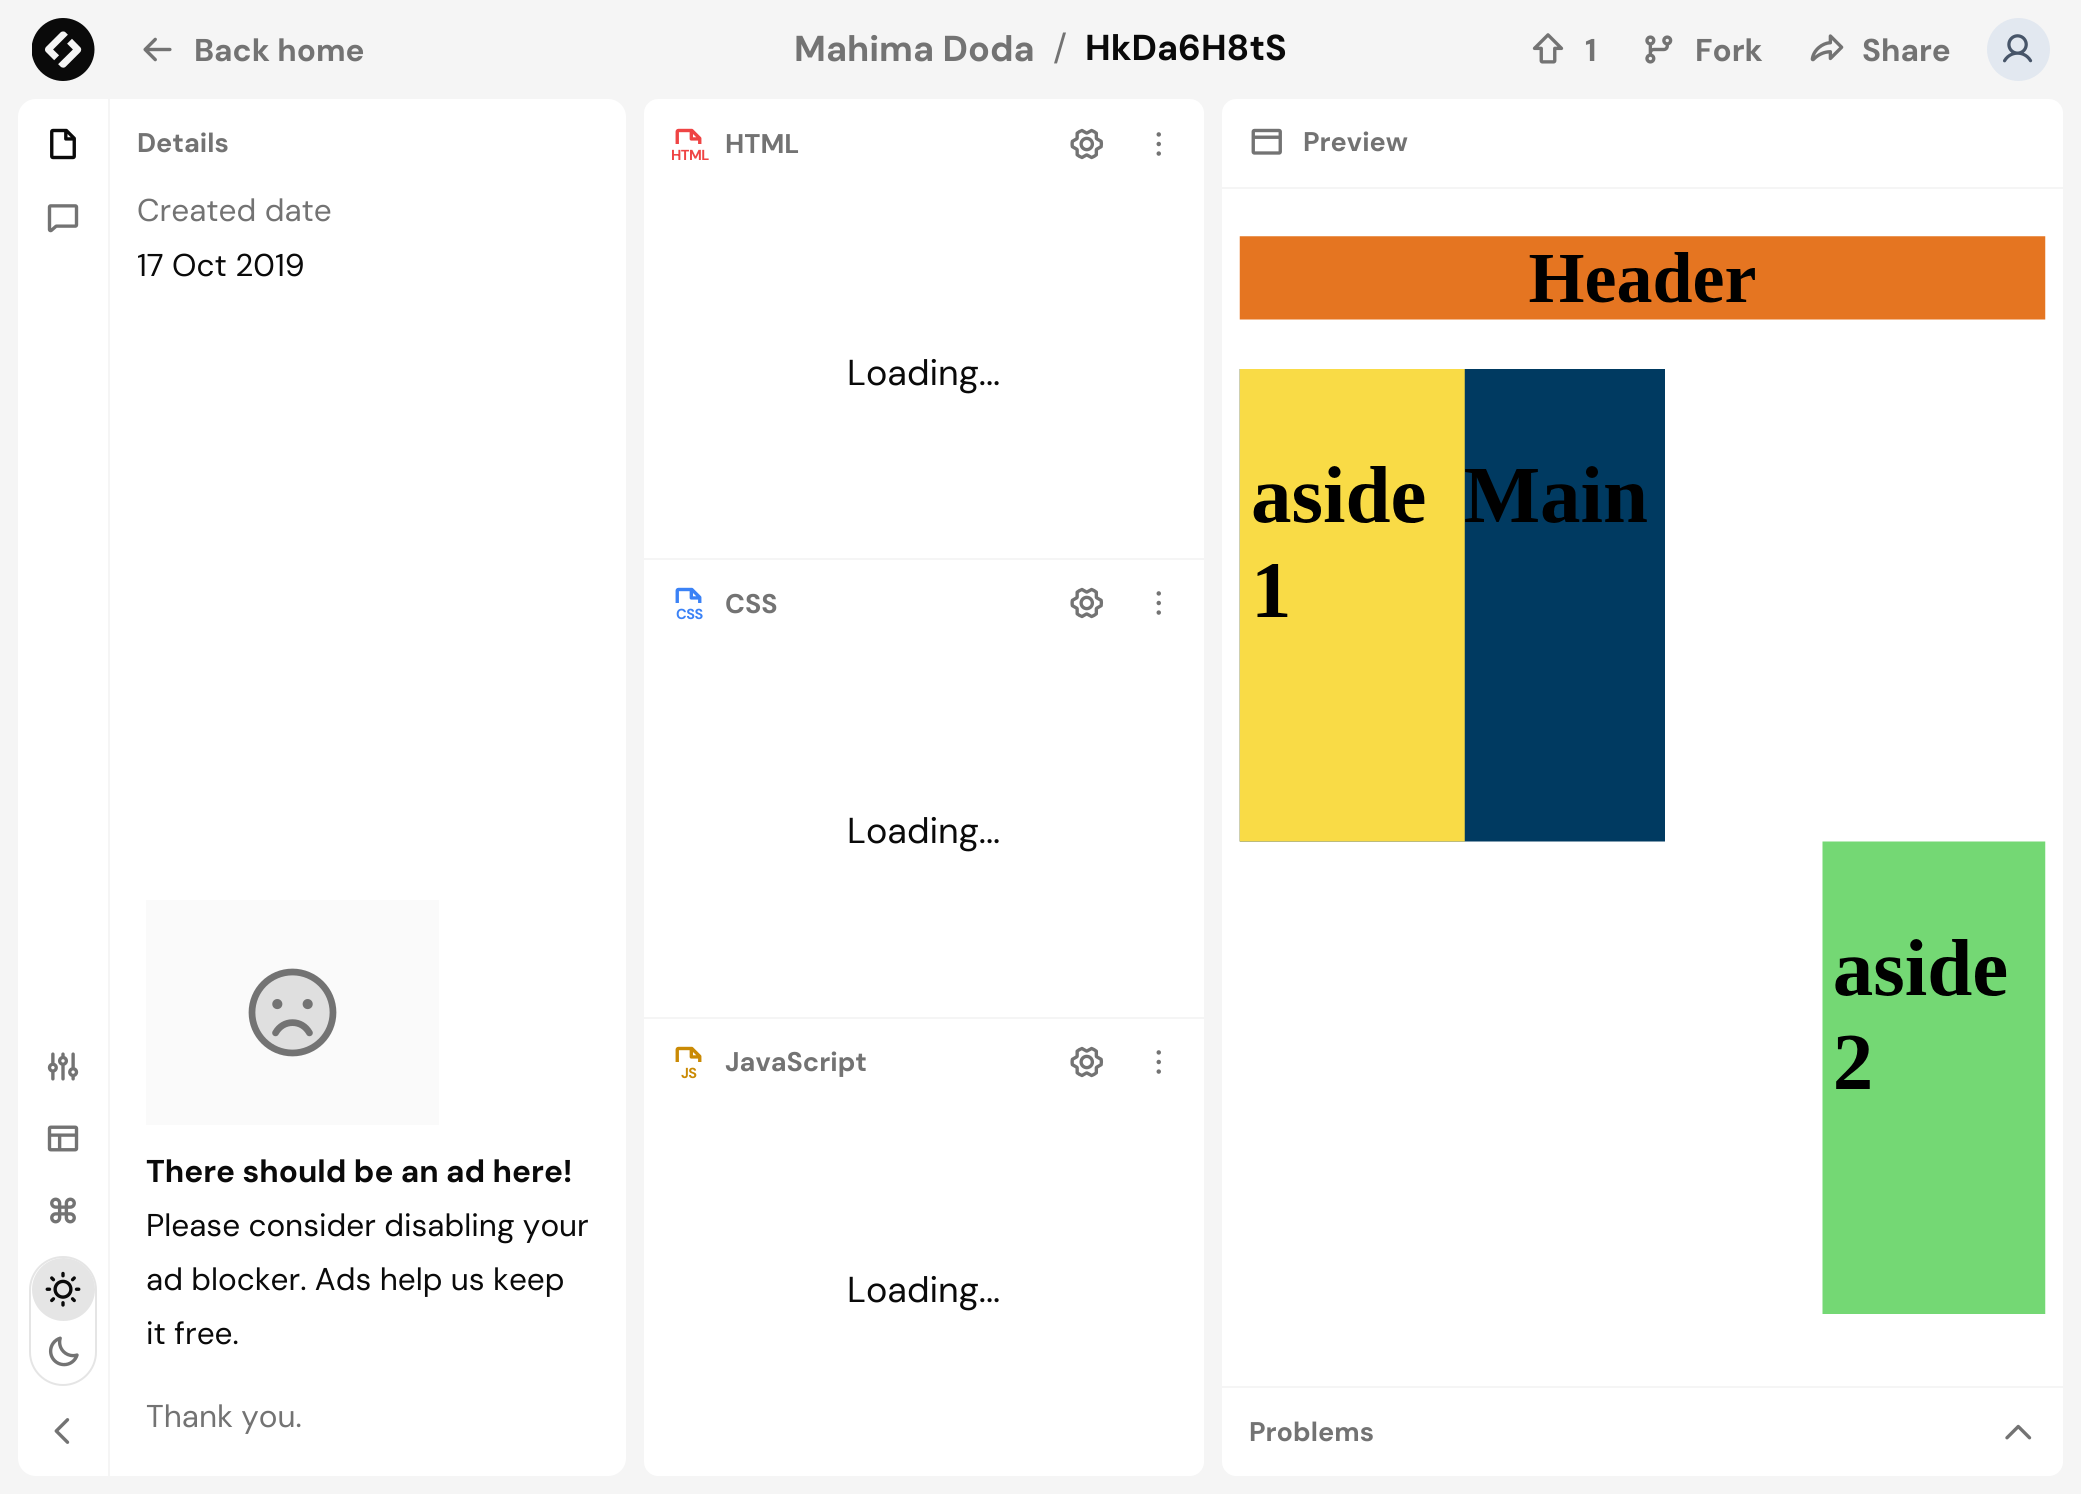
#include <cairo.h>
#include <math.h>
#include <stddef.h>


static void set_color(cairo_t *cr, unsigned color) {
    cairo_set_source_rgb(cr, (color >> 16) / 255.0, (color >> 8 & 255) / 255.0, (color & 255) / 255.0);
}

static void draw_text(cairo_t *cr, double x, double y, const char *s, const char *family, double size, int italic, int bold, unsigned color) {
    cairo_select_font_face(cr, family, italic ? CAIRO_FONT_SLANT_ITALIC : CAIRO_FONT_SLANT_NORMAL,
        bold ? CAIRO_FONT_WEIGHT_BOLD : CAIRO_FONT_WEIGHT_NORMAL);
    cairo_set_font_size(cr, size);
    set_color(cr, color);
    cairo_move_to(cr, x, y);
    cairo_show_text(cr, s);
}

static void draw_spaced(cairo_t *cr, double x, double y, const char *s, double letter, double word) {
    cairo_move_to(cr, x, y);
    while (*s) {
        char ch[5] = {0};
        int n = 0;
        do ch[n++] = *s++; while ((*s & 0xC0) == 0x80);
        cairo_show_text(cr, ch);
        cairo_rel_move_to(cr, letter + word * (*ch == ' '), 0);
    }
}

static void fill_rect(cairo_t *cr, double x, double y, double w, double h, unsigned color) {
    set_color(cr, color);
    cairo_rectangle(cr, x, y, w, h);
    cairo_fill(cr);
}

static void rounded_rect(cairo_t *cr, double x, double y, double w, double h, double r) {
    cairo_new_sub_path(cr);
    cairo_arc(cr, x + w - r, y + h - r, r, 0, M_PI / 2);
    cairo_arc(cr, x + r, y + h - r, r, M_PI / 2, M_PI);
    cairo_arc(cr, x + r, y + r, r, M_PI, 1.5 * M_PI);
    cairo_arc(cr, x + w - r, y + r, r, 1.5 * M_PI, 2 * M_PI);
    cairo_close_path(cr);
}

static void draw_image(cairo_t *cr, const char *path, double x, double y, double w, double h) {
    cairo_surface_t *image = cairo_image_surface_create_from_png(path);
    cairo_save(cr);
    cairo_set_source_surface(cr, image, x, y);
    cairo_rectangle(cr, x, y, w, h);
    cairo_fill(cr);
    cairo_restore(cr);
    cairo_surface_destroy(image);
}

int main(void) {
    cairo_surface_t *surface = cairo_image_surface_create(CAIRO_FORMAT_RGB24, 2081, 1494);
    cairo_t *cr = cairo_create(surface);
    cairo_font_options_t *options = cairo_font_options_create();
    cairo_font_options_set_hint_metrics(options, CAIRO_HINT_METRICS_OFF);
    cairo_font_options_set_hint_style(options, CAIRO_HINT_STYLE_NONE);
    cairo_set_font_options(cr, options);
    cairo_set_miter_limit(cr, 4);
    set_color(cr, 0xF5F5F5);
    cairo_paint(cr);
    draw_image(cr, "assets/img1.png", 32, 18, 63, 63);
    draw_image(cr, "assets/img2.png", 143, 37, 29, 25);
    draw_text(cr, 194, 61, "Back home", "DM Sans", 31.5, 0, 1, 0x737373);
    draw_text(cr, 794, 61, "Mahima Doda", "DM Sans", 36, 0, 1, 0x737373);
    draw_text(cr, 1053, 60, "/", "DM Sans", 36, 0, 0, 0x737373);
    draw_text(cr, 1085, 60, "HkDa6H8tS", "DM Sans", 36, 0, 1, 0x0A0A0A);
    draw_image(cr, "assets/img3.png", 1532, 33, 32, 31);
    draw_text(cr, 1585, 61, "1", "DM Sans", 31.5, 0, 1, 0x737373);
    draw_image(cr, "assets/img4.png", 1645, 35, 28, 29);
    draw_text(cr, 1695, 61, "Fork", "DM Sans", 31.5, 0, 1, 0x737373);
    draw_image(cr, "assets/img5.png", 1810, 34, 34, 28);
    draw_text(cr, 1862, 61, "Share", "DM Sans", 31.5, 0, 1, 0x737373);
    set_color(cr, 0xE2E8F0);
    cairo_new_path(cr);
    cairo_arc(cr, 2018.5, 49.5, 31.5, 0, 2 * M_PI);
    cairo_fill(cr);
    draw_image(cr, "assets/img6.png", 2003, 34, 30, 29);
    set_color(cr, 0xFFFFFF);
    rounded_rect(cr, 18, 99, 608, 1377, 18);
    cairo_fill(cr);
    fill_rect(cr, 108, 99, 2, 1377, 0xF5F5F5);
    draw_image(cr, "assets/img7.png", 50, 128, 26, 32);
    draw_image(cr, "assets/img8.png", 47, 204, 32, 29);
    draw_image(cr, "assets/img9.png", 47, 1052, 32, 29);
    draw_image(cr, "assets/img10.png", 47, 1125, 32, 27);
    draw_image(cr, "assets/img11.png", 50, 1197, 26, 27);
    rounded_rect(cr, 30, 1257, 66, 128, 33);
    set_color(cr, 0xE5E5E5);
    cairo_stroke(cr);
    cairo_arc(cr, 63.5, 1289.5, 31.5, 0, 2 * M_PI);
    cairo_fill(cr);
    draw_image(cr, "assets/img12.png", 45, 1271, 36, 36);
    draw_image(cr, "assets/img13.png", 48, 1336, 31, 31);
    draw_image(cr, "assets/img14.png", 54, 1418, 16, 26);
    draw_text(cr, 137, 152, "Details", "DM Sans", 27, 0, 1, 0x737373);
    draw_text(cr, 137, 221, "Created date", "DM Sans", 31.5, 0, 0, 0x737373);
    draw_text(cr, 137, 276, "17 Oct 2019", "DM Sans", 31.5, 0, 0, 0x0A0A0A);
    fill_rect(cr, 146, 900, 293, 225, 0xFAFAFA);
    draw_image(cr, "assets/img15.png", 248, 968, 89, 89);
    draw_text(cr, 146, 1182, "There should be an ad here!", "DM Sans", 31.5, 0, 1, 0x0A0A0A);
    draw_text(cr, 146, 1236, "Please consider disabling your", "DM Sans", 31.5, 0, 0, 0x0A0A0A);
    draw_text(cr, 146, 1290, "ad blocker. Ads help us keep", "DM Sans", 31.5, 0, 0, 0x0A0A0A);
    draw_text(cr, 146, 1344, "it free.", "DM Sans", 31.5, 0, 0, 0x0A0A0A);
    draw_text(cr, 146, 1427, "Thank you.", "DM Sans", 31.5, 0, 0, 0x737373);
    set_color(cr, 0xFFFFFF);
    cairo_new_path(cr);
    cairo_move_to(cr, 658, 99);
    cairo_line_to(cr, 1190, 99);
    cairo_curve_to(cr, 1197.5, 99, 1204, 105.5, 1204, 113);
    cairo_line_to(cr, 1204, 189);
    cairo_line_to(cr, 644, 189);
    cairo_line_to(cr, 644, 113);
    cairo_curve_to(cr, 644, 105.5, 650.5, 99, 658, 99);
    cairo_close_path(cr);
    cairo_fill(cr);
    draw_text(cr, 725, 153, "HTML", "DM Sans", 27, 0, 1, 0x737373);
    draw_image(cr, "assets/img16.png", 675, 128, 27, 16);
    cairo_set_font_size(cr, 14.5);
    set_color(cr, 0xEF4444);
    draw_spaced(cr, 671, 160, "HTML", -0.5, 0);
    draw_image(cr, "assets/img17.png", 1070, 128, 34, 32);
    draw_image(cr, "assets/img18.png", 1156, 132, 5, 24);
    fill_rect(cr, 644, 189, 560, 369, 0xFFFFFF);
    draw_text(cr, 847, 385, "Loading...", "DM Sans", 36, 0, 0, 0x0A0A0A);
    fill_rect(cr, 644, 560, 560, 457, 0xFFFFFF);
    draw_image(cr, "assets/img19.png", 675, 587, 27, 16);
    cairo_select_font_face(cr, "DM Sans", CAIRO_FONT_SLANT_NORMAL, CAIRO_FONT_WEIGHT_BOLD);
    cairo_set_font_size(cr, 14.5);
    set_color(cr, 0x3B82F6);
    draw_spaced(cr, 676, 619, "CSS", -0.5, 0);
    draw_text(cr, 725, 613, "CSS", "DM Sans", 27, 0, 1, 0x737373);
    draw_image(cr, "assets/img17.png", 1070, 587, 34, 32);
    draw_image(cr, "assets/img18.png", 1156, 591, 5, 24);
    draw_text(cr, 847, 843, "Loading...", "DM Sans", 36, 0, 0, 0x0A0A0A);
    fill_rect(cr, 644, 1019, 560, 88, 0xFFFFFF);
    draw_image(cr, "assets/img20.png", 675, 1046, 27, 16);
    cairo_select_font_face(cr, "DM Sans", CAIRO_FONT_SLANT_NORMAL, CAIRO_FONT_WEIGHT_BOLD);
    cairo_set_font_size(cr, 14.5);
    set_color(cr, 0xCA8A04);
    draw_spaced(cr, 681, 1078, "JS", -0.5, 0);
    draw_text(cr, 725, 1071, "JavaScript", "DM Sans", 27, 0, 1, 0x737373);
    draw_image(cr, "assets/img17.png", 1070, 1046, 34, 32);
    draw_image(cr, "assets/img18.png", 1156, 1050, 5, 24);
    set_color(cr, 0xFFFFFF);
    cairo_new_path(cr);
    cairo_move_to(cr, 644, 1107);
    cairo_line_to(cr, 1204, 1107);
    cairo_line_to(cr, 1204, 1462);
    cairo_curve_to(cr, 1204, 1469.5, 1197.5, 1476, 1190, 1476);
    cairo_line_to(cr, 658, 1476);
    cairo_curve_to(cr, 650.5, 1476, 644, 1469.5, 644, 1462);
    cairo_close_path(cr);
    cairo_fill(cr);
    draw_text(cr, 847, 1302, "Loading...", "DM Sans", 36, 0, 0, 0x0A0A0A);
    set_color(cr, 0xFFFFFF);
    cairo_new_path(cr);
    cairo_move_to(cr, 1236, 99);
    cairo_line_to(cr, 2049, 99);
    cairo_curve_to(cr, 2056.5, 99, 2063, 105.5, 2063, 113);
    cairo_line_to(cr, 2063, 1386);
    cairo_line_to(cr, 1222, 1386);
    cairo_line_to(cr, 1222, 113);
    cairo_curve_to(cr, 1222, 105.5, 1228.5, 99, 1236, 99);
    cairo_close_path(cr);
    cairo_fill(cr);
    fill_rect(cr, 1222, 187, 841, 2, 0xF5F5F5);
    draw_image(cr, "assets/img21.png", 1251, 128, 31, 27);
    draw_text(cr, 1303, 151, "Preview", "DM Sans", 27, 0, 1, 0x737373);
    draw_image(cr, "assets/img22.png", 1239, 236, 807, 1078);
    set_color(cr, 0xFFFFFF);
    cairo_new_path(cr);
    cairo_move_to(cr, 1222, 1388);
    cairo_line_to(cr, 2063, 1388);
    cairo_line_to(cr, 2063, 1462);
    cairo_curve_to(cr, 2063, 1469.5, 2056.5, 1476, 2049, 1476);
    cairo_line_to(cr, 1236, 1476);
    cairo_curve_to(cr, 1228.5, 1476, 1222, 1469.5, 1222, 1462);
    cairo_close_path(cr);
    cairo_fill(cr);
    draw_text(cr, 1249, 1441, "Problems", "DM Sans", 27, 0, 1, 0x737373);
    draw_image(cr, "assets/img23.png", 2005, 1424, 27, 16);
    cairo_surface_write_to_png(surface, "output.png");
    cairo_font_options_destroy(options);
    cairo_destroy(cr);
    cairo_surface_destroy(surface);
    return 0;
}
